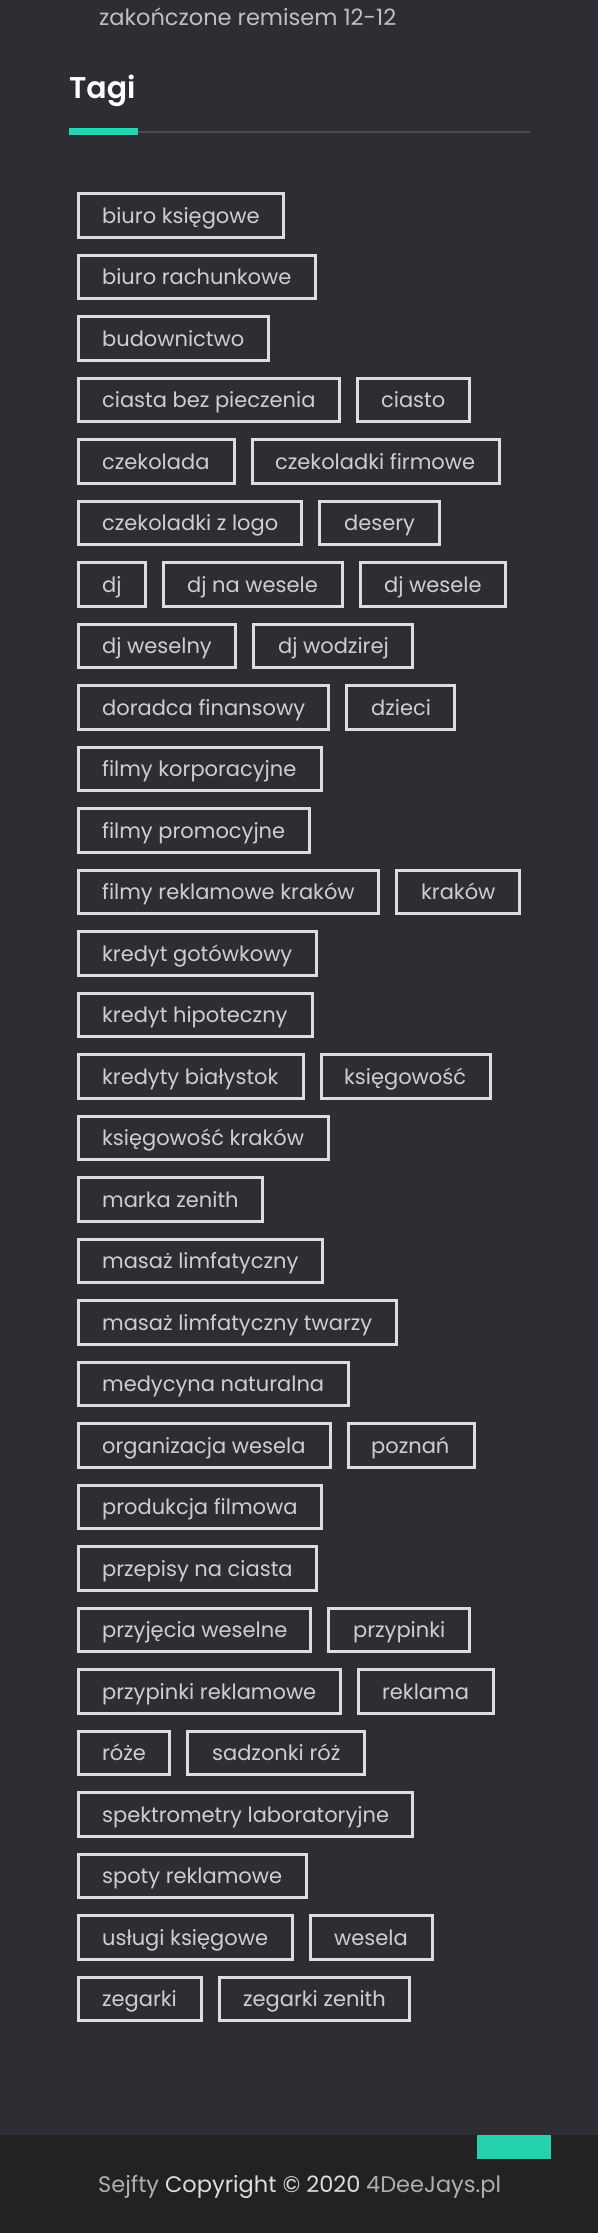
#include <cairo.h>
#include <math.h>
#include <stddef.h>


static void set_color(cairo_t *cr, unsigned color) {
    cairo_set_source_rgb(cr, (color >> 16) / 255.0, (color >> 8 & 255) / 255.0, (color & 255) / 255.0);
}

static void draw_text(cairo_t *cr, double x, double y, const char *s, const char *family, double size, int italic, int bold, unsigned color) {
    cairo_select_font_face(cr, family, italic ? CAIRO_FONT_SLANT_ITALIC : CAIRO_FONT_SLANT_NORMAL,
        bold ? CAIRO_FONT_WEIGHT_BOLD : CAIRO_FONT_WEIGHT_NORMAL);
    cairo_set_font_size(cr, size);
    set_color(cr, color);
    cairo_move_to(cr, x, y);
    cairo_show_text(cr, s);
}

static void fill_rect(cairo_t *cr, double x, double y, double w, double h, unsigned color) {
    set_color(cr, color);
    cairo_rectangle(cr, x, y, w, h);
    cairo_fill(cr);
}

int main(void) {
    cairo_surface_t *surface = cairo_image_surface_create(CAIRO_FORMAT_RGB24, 598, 2233);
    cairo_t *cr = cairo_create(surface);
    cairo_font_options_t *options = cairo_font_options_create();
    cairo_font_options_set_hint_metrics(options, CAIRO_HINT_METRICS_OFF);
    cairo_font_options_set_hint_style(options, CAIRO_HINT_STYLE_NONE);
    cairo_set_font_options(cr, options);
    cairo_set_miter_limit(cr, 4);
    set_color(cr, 0x232121);
    cairo_paint(cr);
    fill_rect(cr, 0, 0, 598, 2135, 0x2C2E33);
    draw_text(cr, 99, 25, "zakończone remisem 12-12", "Poppins", 22.5, 0, 0, 0xBFBFBF);
    fill_rect(cr, 138, 131, 392, 2, 0x4A4B50);
    draw_text(cr, 69, 98, "Tagi", "Poppins SemiBold", 30, 0, 0, 0xFFFFFF);
    fill_rect(cr, 69, 128, 69, 7, 0x25D5B2);
    cairo_rectangle(cr, 78.5, 193.5, 205, 44);
    set_color(cr, 0xDDDDDD);
    cairo_set_line_width(cr, 3);
    cairo_stroke(cr);
    draw_text(cr, 102, 223, "biuro księgowe", "Poppins", 21, 0, 0, 0xCECECE);
    cairo_rectangle(cr, 78.5, 255.5, 237, 43);
    set_color(cr, 0xDDDDDD);
    cairo_stroke(cr);
    draw_text(cr, 102, 284, "biuro rachunkowe", "Poppins", 21, 0, 0, 0xCECECE);
    cairo_rectangle(cr, 78.5, 316.5, 190, 44);
    set_color(cr, 0xDDDDDD);
    cairo_stroke(cr);
    draw_text(cr, 102, 346, "budownictwo", "Poppins", 21, 0, 0, 0xCECECE);
    cairo_rectangle(cr, 78.5, 378.5, 261, 43);
    set_color(cr, 0xDDDDDD);
    cairo_stroke(cr);
    draw_text(cr, 102, 407, "ciasta bez pieczenia", "Poppins", 21, 0, 0, 0xCECECE);
    cairo_rectangle(cr, 357.5, 378.5, 112, 43);
    set_color(cr, 0xDDDDDD);
    cairo_stroke(cr);
    draw_text(cr, 381, 407, "ciasto", "Poppins", 21, 0, 0, 0xCECECE);
    cairo_rectangle(cr, 78.5, 439.5, 156, 44);
    set_color(cr, 0xDDDDDD);
    cairo_stroke(cr);
    draw_text(cr, 102, 469, "czekolada", "Poppins", 21, 0, 0, 0xCECECE);
    cairo_rectangle(cr, 252.5, 439.5, 247, 44);
    set_color(cr, 0xDDDDDD);
    cairo_stroke(cr);
    draw_text(cr, 275, 469, "czekoladki firmowe", "Poppins", 21, 0, 0, 0xCECECE);
    cairo_rectangle(cr, 78.5, 501.5, 223, 43);
    set_color(cr, 0xDDDDDD);
    cairo_stroke(cr);
    draw_text(cr, 102, 530, "czekoladki z logo", "Poppins", 21, 0, 0, 0xCECECE);
    cairo_rectangle(cr, 319.5, 501.5, 120, 43);
    set_color(cr, 0xDDDDDD);
    cairo_stroke(cr);
    draw_text(cr, 344, 530, "desery", "Poppins", 21, 0, 0, 0xCECECE);
    cairo_rectangle(cr, 78.5, 562.5, 67, 44);
    set_color(cr, 0xDDDDDD);
    cairo_stroke(cr);
    draw_text(cr, 102, 592, "dj", "Poppins", 21, 0, 0, 0xCECECE);
    cairo_rectangle(cr, 163.5, 562.5, 179, 44);
    set_color(cr, 0xDDDDDD);
    cairo_stroke(cr);
    draw_text(cr, 187, 592, "dj na wesele", "Poppins", 21, 0, 0, 0xCECECE);
    cairo_rectangle(cr, 360.5, 562.5, 145, 44);
    set_color(cr, 0xDDDDDD);
    cairo_stroke(cr);
    draw_text(cr, 384, 592, "dj wesele", "Poppins", 21, 0, 0, 0xCECECE);
    cairo_rectangle(cr, 78.5, 624.5, 157, 43);
    set_color(cr, 0xDDDDDD);
    cairo_stroke(cr);
    draw_text(cr, 102, 653, "dj weselny", "Poppins", 21, 0, 0, 0xCECECE);
    cairo_rectangle(cr, 253.5, 624.5, 159, 43);
    set_color(cr, 0xDDDDDD);
    cairo_stroke(cr);
    draw_text(cr, 278, 653, "dj wodzirej", "Poppins", 21, 0, 0, 0xCECECE);
    cairo_rectangle(cr, 78.5, 685.5, 250, 44);
    set_color(cr, 0xDDDDDD);
    cairo_stroke(cr);
    draw_text(cr, 102, 715, "doradca finansowy", "Poppins", 21, 0, 0, 0xCECECE);
    cairo_rectangle(cr, 346.5, 685.5, 108, 44);
    set_color(cr, 0xDDDDDD);
    cairo_stroke(cr);
    draw_text(cr, 371, 715, "dzieci", "Poppins", 21, 0, 0, 0xCECECE);
    cairo_rectangle(cr, 78.5, 747.5, 243, 43);
    set_color(cr, 0xDDDDDD);
    cairo_stroke(cr);
    draw_text(cr, 102, 776, "filmy korporacyjne", "Poppins", 21, 0, 0, 0xCECECE);
    cairo_rectangle(cr, 78.5, 808.5, 231, 44);
    set_color(cr, 0xDDDDDD);
    cairo_stroke(cr);
    draw_text(cr, 102, 838, "filmy promocyjne", "Poppins", 21, 0, 0, 0xCECECE);
    cairo_rectangle(cr, 78.5, 870.5, 300, 43);
    set_color(cr, 0xDDDDDD);
    cairo_stroke(cr);
    draw_text(cr, 102, 899, "filmy reklamowe kraków", "Poppins", 21, 0, 0, 0xCECECE);
    cairo_rectangle(cr, 396.5, 870.5, 123, 43);
    set_color(cr, 0xDDDDDD);
    cairo_stroke(cr);
    draw_text(cr, 421, 899, "kraków", "Poppins", 21, 0, 0, 0xCECECE);
    cairo_rectangle(cr, 78.5, 931.5, 238, 44);
    set_color(cr, 0xDDDDDD);
    cairo_stroke(cr);
    draw_text(cr, 102, 961, "kredyt gotówkowy", "Poppins", 21, 0, 0, 0xCECECE);
    cairo_rectangle(cr, 78.5, 993.5, 234, 43);
    set_color(cr, 0xDDDDDD);
    cairo_stroke(cr);
    draw_text(cr, 102, 1022, "kredyt hipoteczny", "Poppins", 21, 0, 0, 0xCECECE);
    cairo_rectangle(cr, 78.5, 1054.5, 225, 44);
    set_color(cr, 0xDDDDDD);
    cairo_stroke(cr);
    draw_text(cr, 102, 1084, "kredyty białystok", "Poppins", 21, 0, 0, 0xCECECE);
    cairo_rectangle(cr, 321.5, 1054.5, 169, 44);
    set_color(cr, 0xDDDDDD);
    cairo_stroke(cr);
    draw_text(cr, 344, 1084, "księgowość", "Poppins", 21, 0, 0, 0xCECECE);
    cairo_rectangle(cr, 78.5, 1116.5, 250, 43);
    set_color(cr, 0xDDDDDD);
    cairo_stroke(cr);
    draw_text(cr, 102, 1145, "księgowość kraków", "Poppins", 21, 0, 0, 0xCECECE);
    cairo_rectangle(cr, 78.5, 1177.5, 184, 44);
    set_color(cr, 0xDDDDDD);
    cairo_stroke(cr);
    draw_text(cr, 102, 1207, "marka zenith", "Poppins", 21, 0, 0, 0xCECECE);
    cairo_rectangle(cr, 78.5, 1239.5, 244, 43);
    set_color(cr, 0xDDDDDD);
    cairo_stroke(cr);
    draw_text(cr, 102, 1268, "masaż limfatyczny", "Poppins", 21, 0, 0, 0xCECECE);
    cairo_rectangle(cr, 78.5, 1300.5, 318, 44);
    set_color(cr, 0xDDDDDD);
    cairo_stroke(cr);
    draw_text(cr, 102, 1330, "masaż limfatyczny twarzy", "Poppins", 21, 0, 0, 0xCECECE);
    cairo_rectangle(cr, 78.5, 1362.5, 270, 43);
    set_color(cr, 0xDDDDDD);
    cairo_stroke(cr);
    draw_text(cr, 102, 1391, "medycyna naturalna", "Poppins", 21, 0, 0, 0xCECECE);
    cairo_rectangle(cr, 78.5, 1423.5, 252, 44);
    set_color(cr, 0xDDDDDD);
    cairo_stroke(cr);
    draw_text(cr, 102, 1453, "organizacja wesela", "Poppins", 21, 0, 0, 0xCECECE);
    cairo_rectangle(cr, 348.5, 1423.5, 126, 44);
    set_color(cr, 0xDDDDDD);
    cairo_stroke(cr);
    draw_text(cr, 371, 1453, "poznań", "Poppins", 21, 0, 0, 0xCECECE);
    cairo_rectangle(cr, 78.5, 1485.5, 243, 43);
    set_color(cr, 0xDDDDDD);
    cairo_stroke(cr);
    draw_text(cr, 102, 1514, "produkcja filmowa", "Poppins", 21, 0, 0, 0xCECECE);
    cairo_rectangle(cr, 78.5, 1546.5, 238, 44);
    set_color(cr, 0xDDDDDD);
    cairo_stroke(cr);
    draw_text(cr, 102, 1576, "przepisy na ciasta", "Poppins", 21, 0, 0, 0xCECECE);
    cairo_rectangle(cr, 78.5, 1608.5, 232, 43);
    set_color(cr, 0xDDDDDD);
    cairo_stroke(cr);
    draw_text(cr, 102, 1637, "przyjęcia weselne", "Poppins", 21, 0, 0, 0xCECECE);
    cairo_rectangle(cr, 328.5, 1608.5, 141, 43);
    set_color(cr, 0xDDDDDD);
    cairo_stroke(cr);
    draw_text(cr, 353, 1637, "przypinki", "Poppins", 21, 0, 0, 0xCECECE);
    cairo_rectangle(cr, 78.5, 1669.5, 262, 44);
    set_color(cr, 0xDDDDDD);
    cairo_stroke(cr);
    draw_text(cr, 102, 1699, "przypinki reklamowe", "Poppins", 21, 0, 0, 0xCECECE);
    cairo_rectangle(cr, 358.5, 1669.5, 135, 44);
    set_color(cr, 0xDDDDDD);
    cairo_stroke(cr);
    draw_text(cr, 382, 1699, "reklama", "Poppins", 21, 0, 0, 0xCECECE);
    cairo_rectangle(cr, 78.5, 1731.5, 91, 43);
    set_color(cr, 0xDDDDDD);
    cairo_stroke(cr);
    draw_text(cr, 102, 1760, "róże", "Poppins", 21, 0, 0, 0xCECECE);
    cairo_rectangle(cr, 187.5, 1731.5, 177, 43);
    set_color(cr, 0xDDDDDD);
    cairo_stroke(cr);
    draw_text(cr, 212, 1760, "sadzonki róż", "Poppins", 21, 0, 0, 0xCECECE);
    cairo_rectangle(cr, 78.5, 1792.5, 334, 44);
    set_color(cr, 0xDDDDDD);
    cairo_stroke(cr);
    draw_text(cr, 102, 1822, "spektrometry laboratoryjne", "Poppins", 21, 0, 0, 0xCECECE);
    cairo_rectangle(cr, 78.5, 1854.5, 228, 43);
    set_color(cr, 0xDDDDDD);
    cairo_stroke(cr);
    draw_text(cr, 102, 1883, "spoty reklamowe", "Poppins", 21, 0, 0, 0xCECECE);
    cairo_rectangle(cr, 78.5, 1915.5, 214, 44);
    set_color(cr, 0xDDDDDD);
    cairo_stroke(cr);
    draw_text(cr, 102, 1945, "usługi księgowe", "Poppins", 21, 0, 0, 0xCECECE);
    cairo_rectangle(cr, 310.5, 1915.5, 122, 44);
    set_color(cr, 0xDDDDDD);
    cairo_stroke(cr);
    draw_text(cr, 334, 1945, "wesela", "Poppins", 21, 0, 0, 0xCECECE);
    cairo_rectangle(cr, 78.5, 1977.5, 123, 43);
    set_color(cr, 0xDDDDDD);
    cairo_stroke(cr);
    draw_text(cr, 102, 2006, "zegarki", "Poppins", 21, 0, 0, 0xCECECE);
    cairo_rectangle(cr, 219.5, 1977.5, 190, 43);
    set_color(cr, 0xDDDDDD);
    cairo_stroke(cr);
    draw_text(cr, 243, 2006, "zegarki zenith", "Poppins", 21, 0, 0, 0xCECECE);
    fill_rect(cr, 477, 2135, 74, 24, 0x25D1AF);
    draw_text(cr, 98, 2192, "Sejfty", "Poppins", 22.5, 0, 0, 0xAFAFAF);
    draw_text(cr, 165, 2192, "Copyright © 2020", "Poppins", 22.5, 0, 0, 0xDDDDDD);
    draw_text(cr, 366, 2192, "4DeeJays.pl", "Poppins", 22.5, 0, 0, 0xAFAFAF);
    cairo_surface_write_to_png(surface, "output.png");
    cairo_font_options_destroy(options);
    cairo_destroy(cr);
    cairo_surface_destroy(surface);
    return 0;
}
